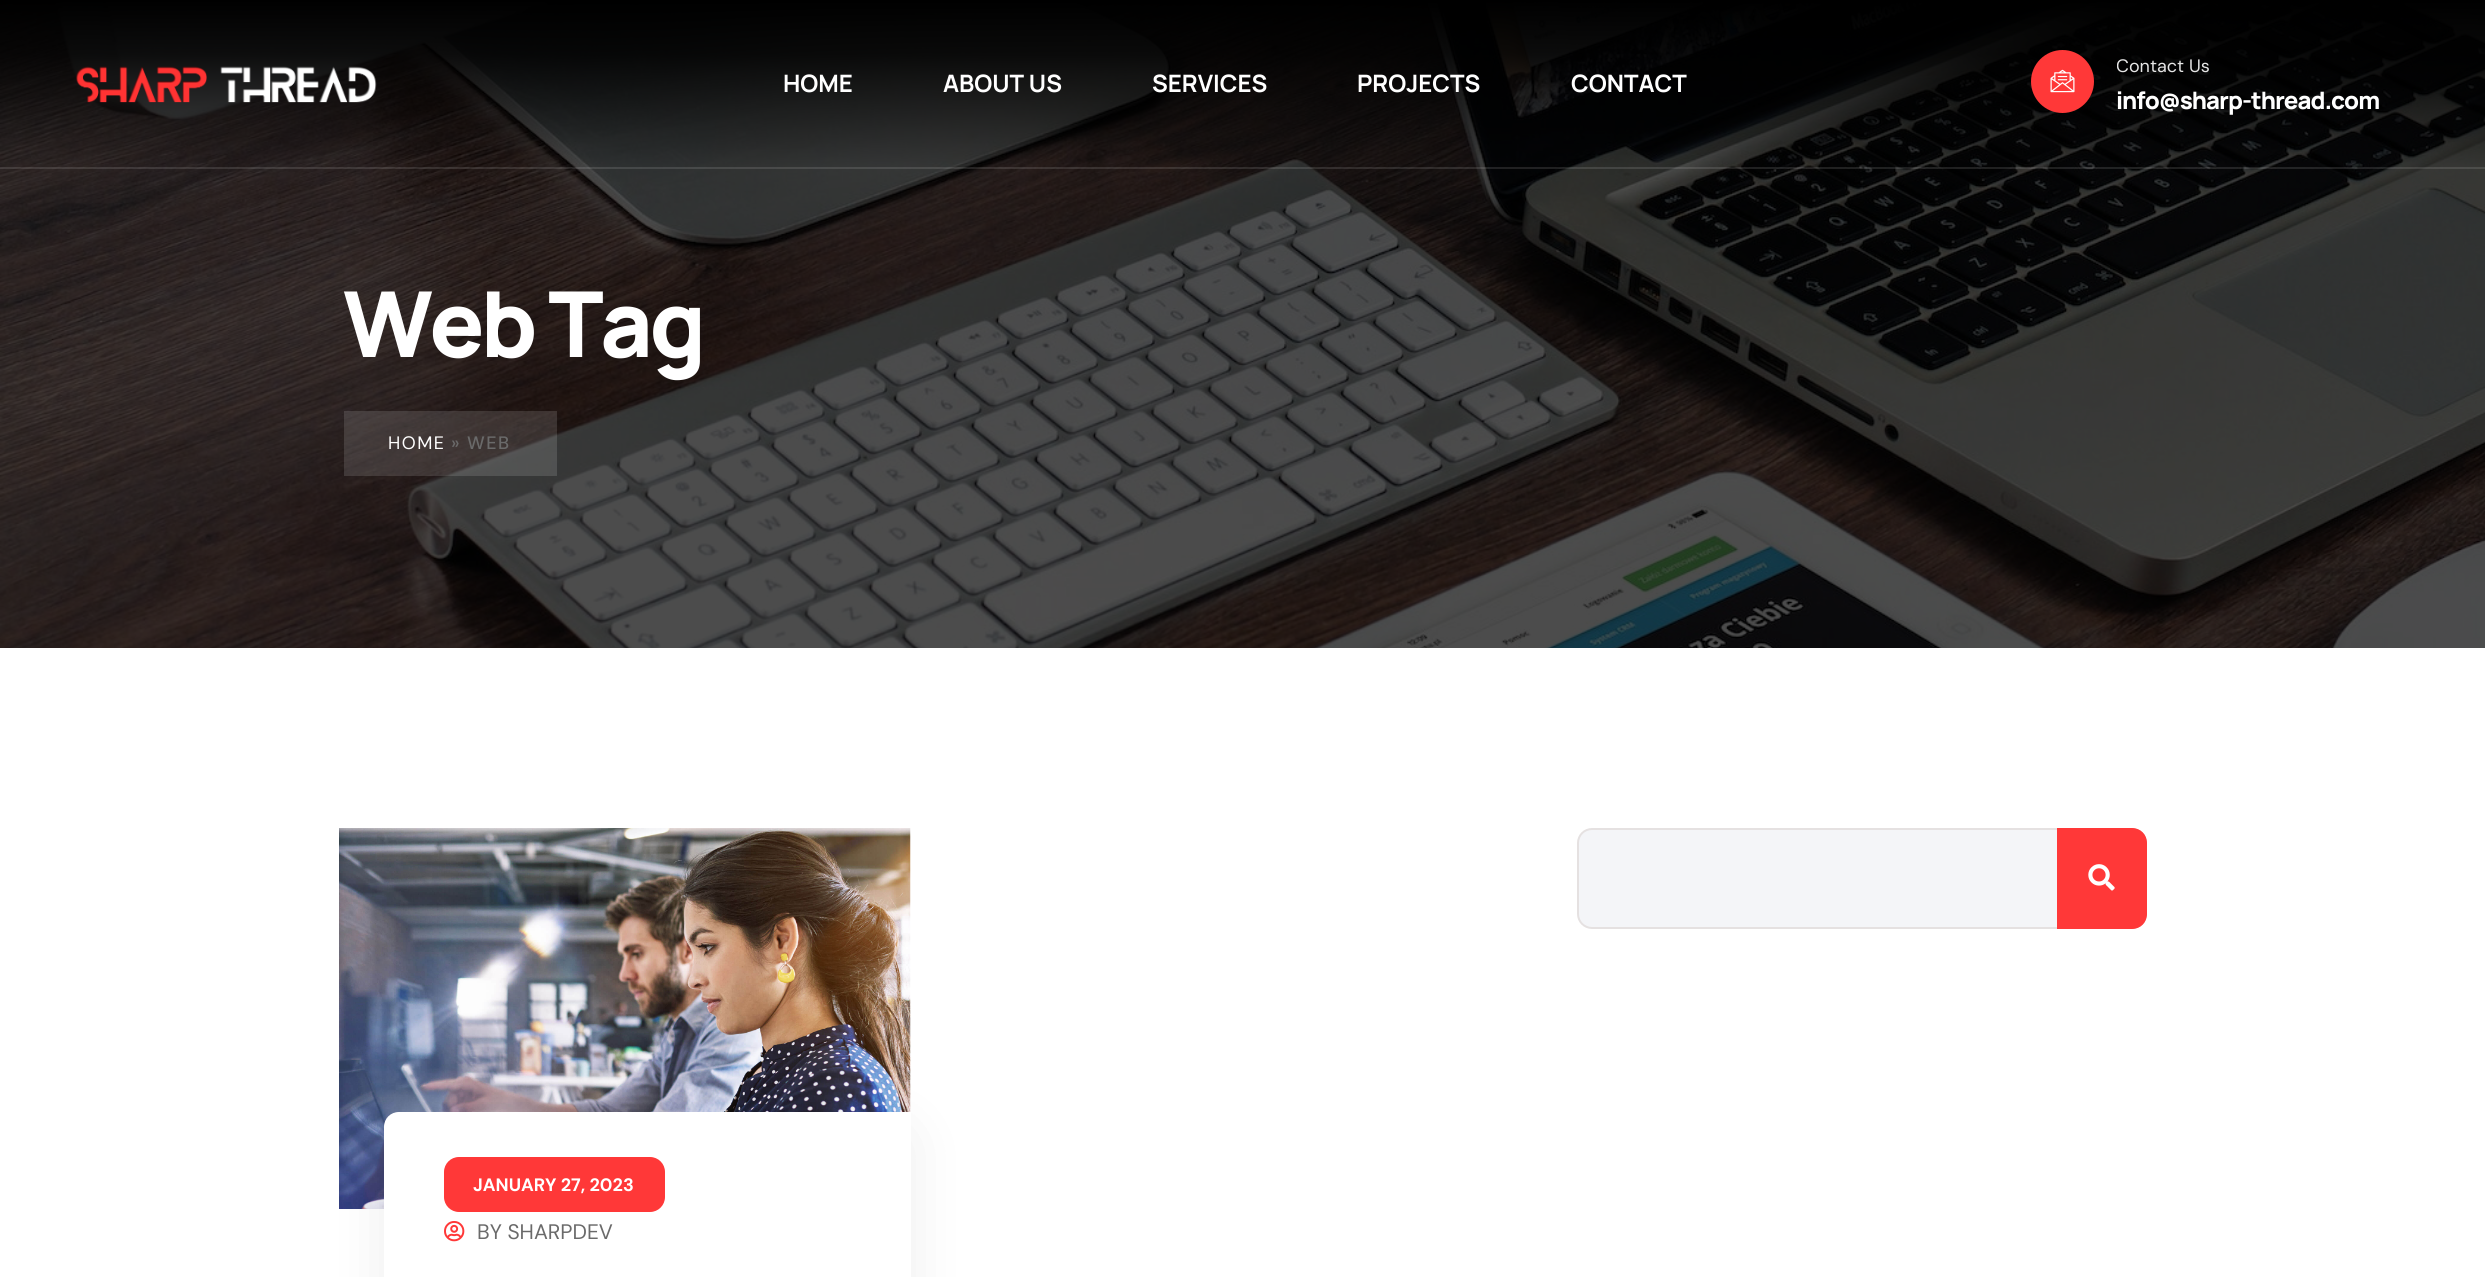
#include <cairo.h>
#include <math.h>
#include <stddef.h>


static void set_color(cairo_t *cr, unsigned color) {
    cairo_set_source_rgb(cr, (color >> 16) / 255.0, (color >> 8 & 255) / 255.0, (color & 255) / 255.0);
}

static void draw_text(cairo_t *cr, double x, double y, const char *s, const char *family, double size, int italic, int bold, unsigned color) {
    cairo_select_font_face(cr, family, italic ? CAIRO_FONT_SLANT_ITALIC : CAIRO_FONT_SLANT_NORMAL,
        bold ? CAIRO_FONT_WEIGHT_BOLD : CAIRO_FONT_WEIGHT_NORMAL);
    cairo_set_font_size(cr, size);
    set_color(cr, color);
    cairo_move_to(cr, x, y);
    cairo_show_text(cr, s);
}

static void draw_spaced(cairo_t *cr, double x, double y, const char *s, double letter, double word) {
    cairo_move_to(cr, x, y);
    while (*s) {
        char ch[5] = {0};
        int n = 0;
        do ch[n++] = *s++; while ((*s & 0xC0) == 0x80);
        cairo_show_text(cr, ch);
        cairo_rel_move_to(cr, letter + word * (*ch == ' '), 0);
    }
}

static void rounded_rect(cairo_t *cr, double x, double y, double w, double h, double r) {
    cairo_new_sub_path(cr);
    cairo_arc(cr, x + w - r, y + h - r, r, 0, M_PI / 2);
    cairo_arc(cr, x + r, y + h - r, r, M_PI / 2, M_PI);
    cairo_arc(cr, x + r, y + r, r, M_PI, 1.5 * M_PI);
    cairo_arc(cr, x + w - r, y + r, r, 1.5 * M_PI, 2 * M_PI);
    cairo_close_path(cr);
}

static void draw_shadow(cairo_t *cr, double x, double y, double w, double h, double r, double blur, double alpha) {
    cairo_push_group_with_content(cr, CAIRO_CONTENT_ALPHA);
    cairo_set_operator(cr, CAIRO_OPERATOR_SOURCE);
    for (int i = 15; i >= -15 && fmin(w, h) + blur * i / 3 > 0; i -= 2) {
        double e = blur * i / 6;
        cairo_set_source_rgba(cr, 0, 0, 0, alpha * erfc((i - 1) / 8.5) / 2);
        rounded_rect(cr, x - e, y - e, w + 2 * e, h + 2 * e, fmax(0, fmin(r + e + blur * .6, fmin(w, h) / 2 + e)));
        cairo_fill(cr);
    }
    cairo_pattern_t *soft = cairo_pop_group(cr);
    cairo_mask(cr, soft);
    cairo_pattern_destroy(soft);
}

static void draw_image(cairo_t *cr, const char *path, double x, double y, double w, double h) {
    cairo_surface_t *image = cairo_image_surface_create_from_png(path);
    cairo_save(cr);
    cairo_set_source_surface(cr, image, x, y);
    cairo_rectangle(cr, x, y, w, h);
    cairo_fill(cr);
    cairo_restore(cr);
    cairo_surface_destroy(image);
}

int main(void) {
    cairo_surface_t *surface = cairo_image_surface_create(CAIRO_FORMAT_RGB24, 2485, 1277);
    cairo_t *cr = cairo_create(surface);
    cairo_font_options_t *options = cairo_font_options_create();
    cairo_font_options_set_hint_metrics(options, CAIRO_HINT_METRICS_OFF);
    cairo_font_options_set_hint_style(options, CAIRO_HINT_STYLE_NONE);
    cairo_set_font_options(cr, options);
    cairo_set_miter_limit(cr, 4);
    set_color(cr, 0xFFFFFF);
    cairo_paint(cr);
    draw_image(cr, "assets/img3.png", 0, 0, 2485, 648);
    cairo_set_source_rgba(cr, 0.918, 0.918, 0.918, 0.13);
    cairo_rectangle(cr, 0, 167, 2485, 2);
    cairo_fill(cr);
    draw_image(cr, "assets/img1.png", 76, 66, 301, 37);
    draw_text(cr, 783, 92, "HOME", "Manrope", 24, 0, 1, 0xFFFFFF);
    draw_text(cr, 943, 92, "ABOUT US", "Manrope", 24, 0, 1, 0xFFFFFF);
    draw_text(cr, 1152, 92, "SERVICES", "Manrope", 24, 0, 1, 0xFFFFFF);
    draw_text(cr, 1357, 92, "PROJECTS", "Manrope", 24, 0, 1, 0xFFFFFF);
    draw_text(cr, 1571, 92, "CONTACT", "Manrope", 24, 0, 1, 0xFFFFFF);
    set_color(cr, 0xFF3838);
    cairo_new_path(cr);
    cairo_arc(cr, 2062.5, 81.5, 31.5, 0, 2 * M_PI);
    cairo_fill(cr);
    draw_image(cr, "assets/img2.png", 2050, 69, 25, 24);
    cairo_save(cr);
    cairo_rectangle(cr, 2117, 50, 264, 67);
    cairo_clip(cr);
    draw_text(cr, 2116, 72, "Contact Us", "DM Sans", 18, 0, 0, 0xE6E6E6);
    cairo_restore(cr);
    cairo_select_font_face(cr, "Manrope ExtraBold", CAIRO_FONT_SLANT_NORMAL, CAIRO_FONT_WEIGHT_NORMAL);
    set_color(cr, 0xFFFFFF);
    draw_spaced(cr, 2116, 109, "info@sharp-thread.com", -1, 0);
    cairo_set_font_size(cr, 91);
    draw_spaced(cr, 343, 357, "Web Tag", -3.75, 0);
    cairo_set_source_rgba(cr, 1, 1, 1, 0.13);
    cairo_rectangle(cr, 344, 411, 213, 65);
    cairo_fill(cr);
    cairo_select_font_face(cr, "DM Sans", CAIRO_FONT_SLANT_NORMAL, CAIRO_FONT_WEIGHT_NORMAL);
    cairo_set_font_size(cr, 18);
    set_color(cr, 0xFFFFFF);
    draw_spaced(cr, 388, 449, "HOME", 1.5, 0);
    cairo_select_font_face(cr, "DM Sans Medium", CAIRO_FONT_SLANT_NORMAL, CAIRO_FONT_WEIGHT_NORMAL);
    set_color(cr, 0x6A6A6A);
    draw_spaced(cr, 451, 449, "» WEB", 1.5, 0);
    set_color(cr, 0xF4F5F8);
    rounded_rect(cr, 1578, 829, 568, 99, 14);
    cairo_fill_preserve(cr);
    set_color(cr, 0xE5E1E1);
    cairo_stroke(cr);
    set_color(cr, 0xFF3838);
    cairo_new_path(cr);
    cairo_move_to(cr, 2057, 828);
    cairo_line_to(cr, 2132, 828);
    cairo_curve_to(cr, 2140.5, 828, 2147, 834.5, 2147, 843);
    cairo_line_to(cr, 2147, 914);
    cairo_curve_to(cr, 2147, 922.5, 2140.5, 929, 2132, 929);
    cairo_line_to(cr, 2057, 929);
    cairo_close_path(cr);
    cairo_fill(cr);
    draw_image(cr, "assets/img4.png", 2088, 864, 27, 27);
    draw_image(cr, "assets/img5.png", 339, 828, 572, 381);
    set_color(cr, 0x000000);
    draw_shadow(cr, 384, 1127, 527, 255, 15, 30, 0.07);
    set_color(cr, 0xFFFFFF);
    cairo_new_path(cr);
    cairo_move_to(cr, 399, 1112);
    cairo_line_to(cr, 911, 1112);
    cairo_line_to(cr, 911, 1277);
    cairo_curve_to(cr, 911, 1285.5, 904.5, 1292, 896, 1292);
    cairo_line_to(cr, 399, 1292);
    cairo_curve_to(cr, 390.5, 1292, 384, 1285.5, 384, 1277);
    cairo_line_to(cr, 384, 1127);
    cairo_curve_to(cr, 384, 1118.5, 390.5, 1112, 399, 1112);
    cairo_close_path(cr);
    cairo_fill(cr);
    set_color(cr, 0xFF3838);
    rounded_rect(cr, 444, 1157, 221, 55, 15);
    cairo_fill(cr);
    draw_text(cr, 473, 1191, "JANUARY 27, 2023", "DM Sans", 18, 0, 1, 0xFFFFFF);
    draw_image(cr, "assets/img6.png", 444, 1221, 21, 21);
    draw_text(cr, 477, 1239, "BY SHARPDEV", "DM Sans", 21, 0, 0, 0x6A6A6A);
    cairo_surface_write_to_png(surface, "output.png");
    cairo_font_options_destroy(options);
    cairo_destroy(cr);
    cairo_surface_destroy(surface);
    return 0;
}
